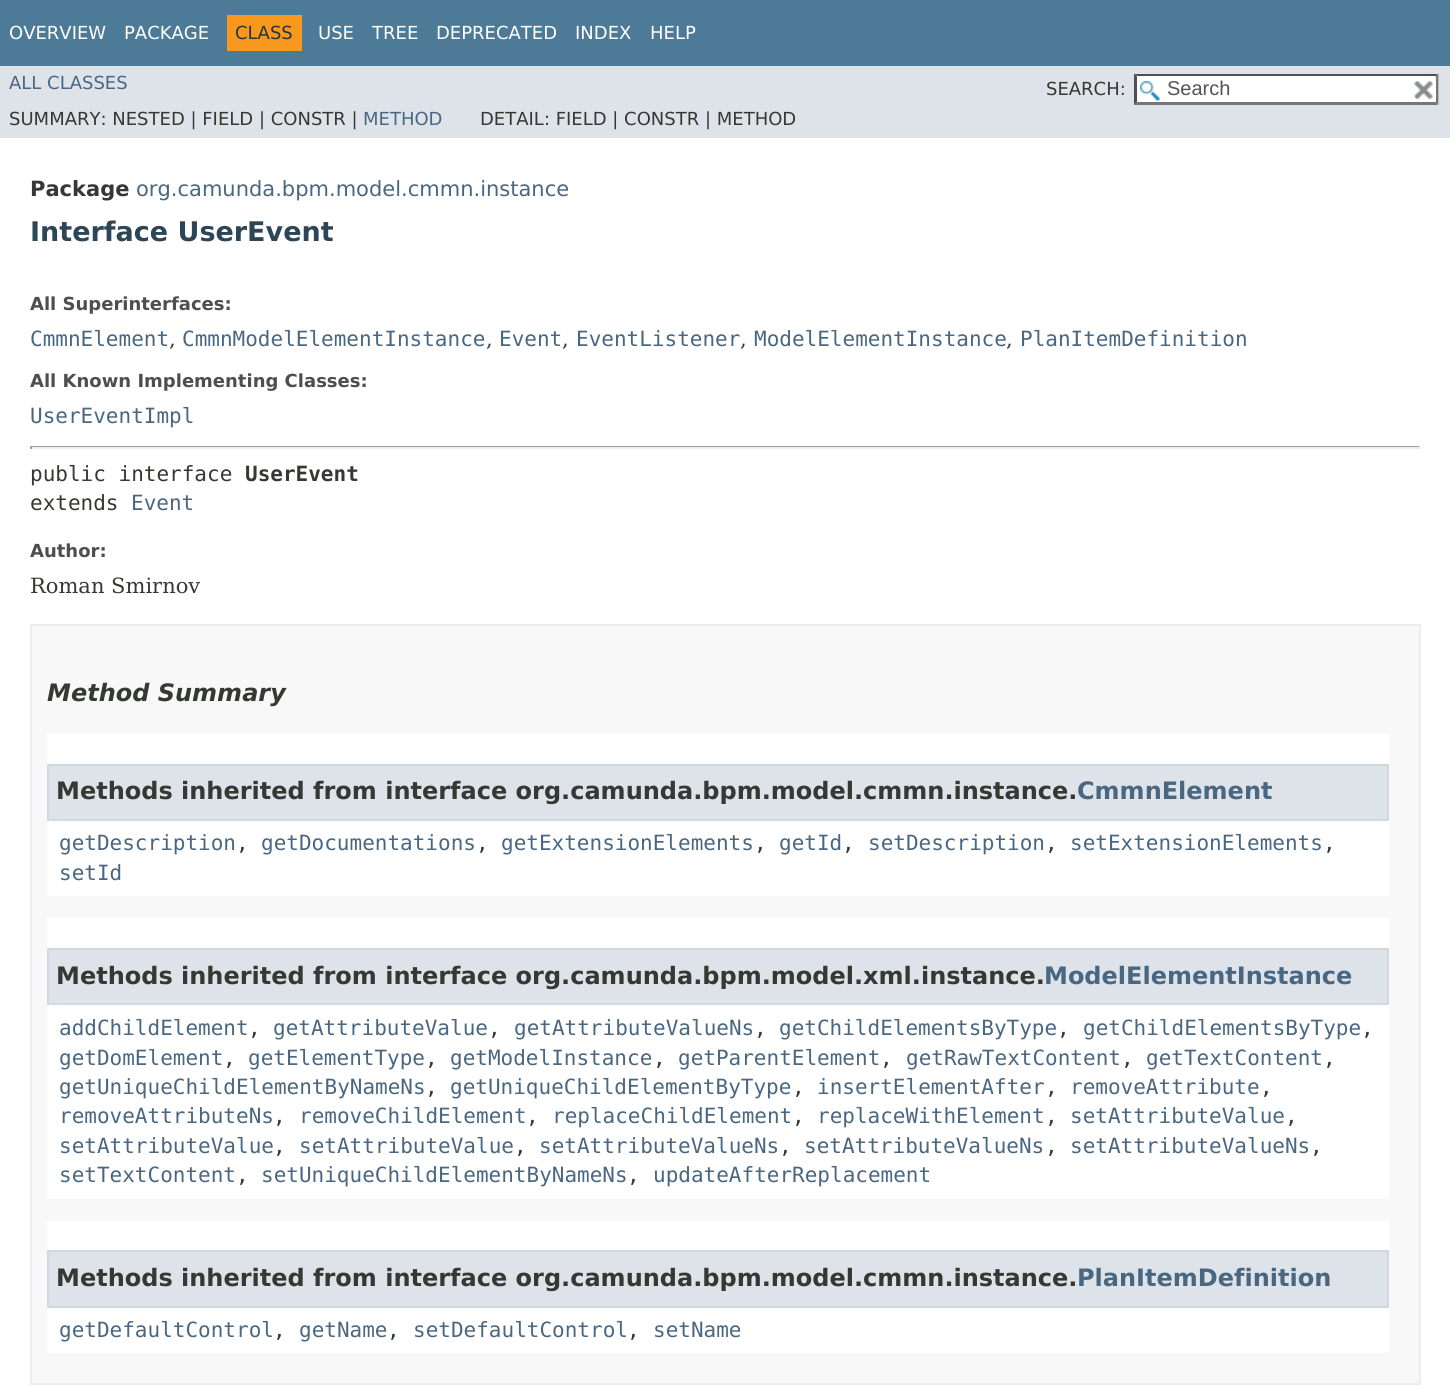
#include <cairo.h>
#include <math.h>
#include <stddef.h>


static void set_color(cairo_t *cr, unsigned color) {
    cairo_set_source_rgb(cr, (color >> 16) / 255.0, (color >> 8 & 255) / 255.0, (color & 255) / 255.0);
}

static void draw_text(cairo_t *cr, double x, double y, const char *s, const char *family, double size, int italic, int bold, unsigned color) {
    cairo_select_font_face(cr, family, italic ? CAIRO_FONT_SLANT_ITALIC : CAIRO_FONT_SLANT_NORMAL,
        bold ? CAIRO_FONT_WEIGHT_BOLD : CAIRO_FONT_WEIGHT_NORMAL);
    cairo_set_font_size(cr, size);
    set_color(cr, color);
    cairo_move_to(cr, x, y);
    cairo_show_text(cr, s);
}

static void fill_rect(cairo_t *cr, double x, double y, double w, double h, unsigned color) {
    set_color(cr, color);
    cairo_rectangle(cr, x, y, w, h);
    cairo_fill(cr);
}

static void draw_image(cairo_t *cr, const char *path, double x, double y, double w, double h) {
    cairo_surface_t *image = cairo_image_surface_create_from_png(path);
    cairo_save(cr);
    cairo_set_source_surface(cr, image, x, y);
    cairo_rectangle(cr, x, y, w, h);
    cairo_fill(cr);
    cairo_restore(cr);
    cairo_surface_destroy(image);
}

int main(void) {
    cairo_surface_t *surface = cairo_image_surface_create(CAIRO_FORMAT_RGB24, 1450, 1387);
    cairo_t *cr = cairo_create(surface);
    cairo_font_options_t *options = cairo_font_options_create();
    cairo_font_options_set_hint_metrics(options, CAIRO_HINT_METRICS_OFF);
    cairo_font_options_set_hint_style(options, CAIRO_HINT_STYLE_NONE);
    cairo_set_font_options(cr, options);
    cairo_set_miter_limit(cr, 4);
    set_color(cr, 0xFFFFFF);
    cairo_paint(cr);
    fill_rect(cr, 0, 0, 1450, 66, 0x4D7A97);
    draw_text(cr, 9, 39, "OVERVIEW", "DejaVu Sans", 18, 0, 0, 0xFFFFFF);
    draw_text(cr, 124, 39, "PACKAGE", "DejaVu Sans", 18, 0, 0, 0xFFFFFF);
    fill_rect(cr, 227, 15, 75, 36, 0xF8981D);
    draw_text(cr, 235, 39, "CLASS", "DejaVu Sans", 18, 0, 0, 0x253441);
    draw_text(cr, 318, 39, "USE", "DejaVu Sans", 18, 0, 0, 0xFFFFFF);
    draw_text(cr, 372, 39, "TREE", "DejaVu Sans", 18, 0, 0, 0xFFFFFF);
    draw_text(cr, 436, 39, "DEPRECATED", "DejaVu Sans", 18, 0, 0, 0xFFFFFF);
    draw_text(cr, 575, 39, "INDEX", "DejaVu Sans", 18, 0, 0, 0xFFFFFF);
    draw_text(cr, 650, 39, "HELP", "DejaVu Sans", 18, 0, 0, 0xFFFFFF);
    fill_rect(cr, 0, 66, 1450, 72, 0xDEE3E9);
    draw_text(cr, 9, 89, "ALL CLASSES", "DejaVu Sans", 18, 0, 0, 0x4A6782);
    draw_text(cr, 1046, 95, "SEARCH:", "DejaVu Sans", 18, 0, 0, 0x353833);
    fill_rect(cr, 1134, 74, 305, 31, 0xFFFFFF);
    draw_image(cr, "assets/img1.png", 1140, 81, 20, 20);
    set_color(cr, 0x4F4F4F);
    cairo_new_path(cr);
    cairo_move_to(cr, 1134, 74);
    cairo_line_to(cr, 1438, 74);
    cairo_line_to(cr, 1436, 76);
    cairo_line_to(cr, 1137, 76);
    cairo_close_path(cr);
    cairo_fill(cr);
    set_color(cr, 0x767676);
    cairo_new_path(cr);
    cairo_move_to(cr, 1438.5, 73.5);
    cairo_line_to(cr, 1438.5, 105);
    cairo_line_to(cr, 1435.5, 102);
    cairo_line_to(cr, 1435.5, 76.5);
    cairo_close_path(cr);
    cairo_fill(cr);
    cairo_new_path(cr);
    cairo_move_to(cr, 1438, 105);
    cairo_line_to(cr, 1134, 105);
    cairo_line_to(cr, 1137, 102);
    cairo_line_to(cr, 1436, 102);
    cairo_close_path(cr);
    cairo_fill(cr);
    set_color(cr, 0x4F4F4F);
    cairo_new_path(cr);
    cairo_move_to(cr, 1134, 105);
    cairo_line_to(cr, 1134, 73.5);
    cairo_line_to(cr, 1137, 76.5);
    cairo_line_to(cr, 1137, 102);
    cairo_close_path(cr);
    cairo_fill(cr);
    draw_text(cr, 1167, 95, "Search", "Liberation Sans", 20, 0, 0, 0x545454);
    fill_rect(cr, 1435, 77, 1, 25, 0xFFFFFF);
    draw_image(cr, "assets/img2.png", 1413, 81, 20, 19);
    draw_text(cr, 9, 125, "SUMMARY: NESTED | FIELD | CONSTR |", "DejaVu Sans", 18, 0, 0, 0x353833);
    draw_text(cr, 363, 125, "METHOD", "DejaVu Sans", 18, 0, 0, 0x4A6782);
    draw_text(cr, 480, 125, "DETAIL: FIELD | CONSTR | METHOD", "DejaVu Sans", 18, 0, 0, 0x353833);
    draw_text(cr, 30, 196, "Package", "DejaVu Sans", 21, 0, 1, 0x353833);
    draw_text(cr, 136, 196, "org.camunda.bpm.model.cmmn.instance", "DejaVu Sans", 21, 0, 0, 0x4A6782);
    draw_text(cr, 30, 241, "Interface UserEvent", "DejaVu Sans", 27, 0, 1, 0x2C4557);
    draw_text(cr, 30, 310, "All Superinterfaces:", "DejaVu Sans", 18, 0, 1, 0x4E4E4E);
    draw_text(cr, 30, 346, "CmmnElement", "DejaVu Sans Mono", 21, 0, 0, 0x4A6782);
    draw_text(cr, 169, 346, ",", "DejaVu Serif", 21, 0, 0, 0x353833);
    draw_text(cr, 182, 346, "CmmnModelElementInstance", "DejaVu Sans Mono", 21, 0, 0, 0x4A6782);
    draw_text(cr, 486, 346, ",", "DejaVu Serif", 21, 0, 0, 0x353833);
    draw_text(cr, 499, 346, "Event", "DejaVu Sans Mono", 21, 0, 0, 0x4A6782);
    draw_text(cr, 562, 346, ",", "DejaVu Serif", 21, 0, 0, 0x353833);
    draw_text(cr, 576, 346, "EventListener", "DejaVu Sans Mono", 21, 0, 0, 0x4A6782);
    draw_text(cr, 740, 346, ",", "DejaVu Serif", 21, 0, 0, 0x353833);
    draw_text(cr, 754, 346, "ModelElementInstance", "DejaVu Sans Mono", 21, 0, 0, 0x4A6782);
    draw_text(cr, 1006, 346, ",", "DejaVu Serif", 21, 0, 0, 0x353833);
    draw_text(cr, 1020, 346, "PlanItemDefinition", "DejaVu Sans Mono", 21, 0, 0, 0x4A6782);
    draw_text(cr, 30, 387, "All Known Implementing Classes:", "DejaVu Sans", 18, 0, 1, 0x4E4E4E);
    draw_text(cr, 30, 423, "UserEventImpl", "DejaVu Sans Mono", 21, 0, 0, 0x4A6782);
    fill_rect(cr, 30, 446, 1391, 1, 0x9F9F9F);
    fill_rect(cr, 1419, 446, 2, 3, 0xEEEEEE);
    fill_rect(cr, 30, 447, 1391, 2, 0xEEEEEE);
    fill_rect(cr, 30, 446, 2, 3, 0x9F9F9F);
    draw_text(cr, 30, 481, "public interface", "DejaVu Sans Mono", 21, 0, 0, 0x353833);
    draw_text(cr, 245, 481, "UserEvent", "DejaVu Sans Mono", 21, 0, 1, 0x353833);
    draw_text(cr, 30, 510, "extends", "DejaVu Sans Mono", 21, 0, 0, 0x353833);
    draw_text(cr, 131, 510, "Event", "DejaVu Sans Mono", 21, 0, 0, 0x4A6782);
    draw_text(cr, 30, 557, "Author:", "DejaVu Sans", 18, 0, 1, 0x4E4E4E);
    draw_text(cr, 30, 593, "Roman Smirnov", "DejaVu Serif", 21, 0, 0, 0x353833);
    set_color(cr, 0xF8F8F8);
    cairo_rectangle(cr, 31, 625, 1389, 759);
    cairo_fill_preserve(cr);
    set_color(cr, 0xEDEDED);
    cairo_stroke(cr);
    draw_text(cr, 47, 701, "Method Summary", "DejaVu Sans", 24, 1, 1, 0x353833);
    fill_rect(cr, 47, 734, 1342, 162, 0xFFFFFF);
    set_color(cr, 0xDEE3E9);
    cairo_rectangle(cr, 48, 765, 1340, 55);
    cairo_fill_preserve(cr);
    set_color(cr, 0xD0D9E0);
    cairo_stroke(cr);
    draw_text(cr, 56, 799, "Methods inherited from interface org.camunda.bpm.model.cmmn.instance.", "DejaVu Sans", 24, 0, 1, 0x353833);
    draw_text(cr, 1077, 799, "CmmnElement", "DejaVu Sans", 24, 0, 1, 0x4A6782);
    draw_text(cr, 59, 850, "getDescription", "DejaVu Sans Mono", 21, 0, 0, 0x4A6782);
    draw_text(cr, 236, 850, ",", "DejaVu Sans Mono", 21, 0, 0, 0x353833);
    draw_text(cr, 261, 850, "getDocumentations", "DejaVu Sans Mono", 21, 0, 0, 0x4A6782);
    draw_text(cr, 476, 850, ",", "DejaVu Sans Mono", 21, 0, 0, 0x353833);
    draw_text(cr, 501, 850, "getExtensionElements", "DejaVu Sans Mono", 21, 0, 0, 0x4A6782);
    draw_text(cr, 754, 850, ",", "DejaVu Sans Mono", 21, 0, 0, 0x353833);
    draw_text(cr, 779, 850, "getId", "DejaVu Sans Mono", 21, 0, 0, 0x4A6782);
    draw_text(cr, 842, 850, ",", "DejaVu Sans Mono", 21, 0, 0, 0x353833);
    draw_text(cr, 868, 850, "setDescription", "DejaVu Sans Mono", 21, 0, 0, 0x4A6782);
    draw_text(cr, 1045, 850, ",", "DejaVu Sans Mono", 21, 0, 0, 0x353833);
    draw_text(cr, 1070, 850, "setExtensionElements", "DejaVu Sans Mono", 21, 0, 0, 0x4A6782);
    draw_text(cr, 1323, 850, ",", "DejaVu Sans Mono", 21, 0, 0, 0x353833);
    draw_text(cr, 59, 880, "setId", "DejaVu Sans Mono", 21, 0, 0, 0x4A6782);
    fill_rect(cr, 47, 918, 1342, 281, 0xFFFFFF);
    set_color(cr, 0xDEE3E9);
    cairo_rectangle(cr, 48, 949, 1340, 55);
    cairo_fill_preserve(cr);
    set_color(cr, 0xD0D9E0);
    cairo_stroke(cr);
    draw_text(cr, 56, 984, "Methods inherited from interface org.camunda.bpm.model.xml.instance.", "DejaVu Sans", 24, 0, 1, 0x353833);
    draw_text(cr, 1044, 984, "ModelElementInstance", "DejaVu Sans", 24, 0, 1, 0x4A6782);
    draw_text(cr, 59, 1035, "addChildElement", "DejaVu Sans Mono", 21, 0, 0, 0x4A6782);
    draw_text(cr, 248, 1035, ",", "DejaVu Sans Mono", 21, 0, 0, 0x353833);
    draw_text(cr, 273, 1035, "getAttributeValue", "DejaVu Sans Mono", 21, 0, 0, 0x4A6782);
    draw_text(cr, 488, 1035, ",", "DejaVu Sans Mono", 21, 0, 0, 0x353833);
    draw_text(cr, 514, 1035, "getAttributeValueNs", "DejaVu Sans Mono", 21, 0, 0, 0x4A6782);
    draw_text(cr, 754, 1035, ",", "DejaVu Sans Mono", 21, 0, 0, 0x353833);
    draw_text(cr, 779, 1035, "getChildElementsByType", "DejaVu Sans Mono", 21, 0, 0, 0x4A6782);
    draw_text(cr, 1057, 1035, ",", "DejaVu Sans Mono", 21, 0, 0, 0x353833);
    draw_text(cr, 1083, 1035, "getChildElementsByType", "DejaVu Sans Mono", 21, 0, 0, 0x4A6782);
    draw_text(cr, 1361, 1035, ",", "DejaVu Sans Mono", 21, 0, 0, 0x353833);
    draw_text(cr, 59, 1065, "getDomElement", "DejaVu Sans Mono", 21, 0, 0, 0x4A6782);
    draw_text(cr, 223, 1065, ",", "DejaVu Sans Mono", 21, 0, 0, 0x353833);
    draw_text(cr, 248, 1065, "getElementType", "DejaVu Sans Mono", 21, 0, 0, 0x4A6782);
    draw_text(cr, 425, 1065, ",", "DejaVu Sans Mono", 21, 0, 0, 0x353833);
    draw_text(cr, 450, 1065, "getModelInstance", "DejaVu Sans Mono", 21, 0, 0, 0x4A6782);
    draw_text(cr, 653, 1065, ",", "DejaVu Sans Mono", 21, 0, 0, 0x353833);
    draw_text(cr, 678, 1065, "getParentElement", "DejaVu Sans Mono", 21, 0, 0, 0x4A6782);
    draw_text(cr, 880, 1065, ",", "DejaVu Sans Mono", 21, 0, 0, 0x353833);
    draw_text(cr, 906, 1065, "getRawTextContent", "DejaVu Sans Mono", 21, 0, 0, 0x4A6782);
    draw_text(cr, 1121, 1065, ",", "DejaVu Sans Mono", 21, 0, 0, 0x353833);
    draw_text(cr, 1146, 1065, "getTextContent", "DejaVu Sans Mono", 21, 0, 0, 0x4A6782);
    draw_text(cr, 1323, 1065, ",", "DejaVu Sans Mono", 21, 0, 0, 0x353833);
    draw_text(cr, 59, 1094, "getUniqueChildElementByNameNs", "DejaVu Sans Mono", 21, 0, 0, 0x4A6782);
    draw_text(cr, 425, 1094, ",", "DejaVu Sans Mono", 21, 0, 0, 0x353833);
    draw_text(cr, 450, 1094, "getUniqueChildElementByType", "DejaVu Sans Mono", 21, 0, 0, 0x4A6782);
    draw_text(cr, 792, 1094, ",", "DejaVu Sans Mono", 21, 0, 0, 0x353833);
    draw_text(cr, 817, 1094, "insertElementAfter", "DejaVu Sans Mono", 21, 0, 0, 0x4A6782);
    draw_text(cr, 1045, 1094, ",", "DejaVu Sans Mono", 21, 0, 0, 0x353833);
    draw_text(cr, 1070, 1094, "removeAttribute", "DejaVu Sans Mono", 21, 0, 0, 0x4A6782);
    draw_text(cr, 1260, 1094, ",", "DejaVu Sans Mono", 21, 0, 0, 0x353833);
    draw_text(cr, 59, 1123, "removeAttributeNs", "DejaVu Sans Mono", 21, 0, 0, 0x4A6782);
    draw_text(cr, 273, 1123, ",", "DejaVu Sans Mono", 21, 0, 0, 0x353833);
    draw_text(cr, 299, 1123, "removeChildElement", "DejaVu Sans Mono", 21, 0, 0, 0x4A6782);
    draw_text(cr, 526, 1123, ",", "DejaVu Sans Mono", 21, 0, 0, 0x353833);
    draw_text(cr, 552, 1123, "replaceChildElement", "DejaVu Sans Mono", 21, 0, 0, 0x4A6782);
    draw_text(cr, 792, 1123, ",", "DejaVu Sans Mono", 21, 0, 0, 0x353833);
    draw_text(cr, 817, 1123, "replaceWithElement", "DejaVu Sans Mono", 21, 0, 0, 0x4A6782);
    draw_text(cr, 1045, 1123, ",", "DejaVu Sans Mono", 21, 0, 0, 0x353833);
    draw_text(cr, 1070, 1123, "setAttributeValue", "DejaVu Sans Mono", 21, 0, 0, 0x4A6782);
    draw_text(cr, 1285, 1123, ",", "DejaVu Sans Mono", 21, 0, 0, 0x353833);
    draw_text(cr, 59, 1153, "setAttributeValue", "DejaVu Sans Mono", 21, 0, 0, 0x4A6782);
    draw_text(cr, 273, 1153, ",", "DejaVu Sans Mono", 21, 0, 0, 0x353833);
    draw_text(cr, 299, 1153, "setAttributeValue", "DejaVu Sans Mono", 21, 0, 0, 0x4A6782);
    draw_text(cr, 514, 1153, ",", "DejaVu Sans Mono", 21, 0, 0, 0x353833);
    draw_text(cr, 539, 1153, "setAttributeValueNs", "DejaVu Sans Mono", 21, 0, 0, 0x4A6782);
    draw_text(cr, 779, 1153, ",", "DejaVu Sans Mono", 21, 0, 0, 0x353833);
    draw_text(cr, 804, 1153, "setAttributeValueNs", "DejaVu Sans Mono", 21, 0, 0, 0x4A6782);
    draw_text(cr, 1045, 1153, ",", "DejaVu Sans Mono", 21, 0, 0, 0x353833);
    draw_text(cr, 1070, 1153, "setAttributeValueNs", "DejaVu Sans Mono", 21, 0, 0, 0x4A6782);
    draw_text(cr, 1310, 1153, ",", "DejaVu Sans Mono", 21, 0, 0, 0x353833);
    draw_text(cr, 59, 1182, "setTextContent", "DejaVu Sans Mono", 21, 0, 0, 0x4A6782);
    draw_text(cr, 236, 1182, ",", "DejaVu Sans Mono", 21, 0, 0, 0x353833);
    draw_text(cr, 261, 1182, "setUniqueChildElementByNameNs", "DejaVu Sans Mono", 21, 0, 0, 0x4A6782);
    draw_text(cr, 627, 1182, ",", "DejaVu Sans Mono", 21, 0, 0, 0x353833);
    draw_text(cr, 653, 1182, "updateAfterReplacement", "DejaVu Sans Mono", 21, 0, 0, 0x4A6782);
    fill_rect(cr, 47, 1221, 1342, 132, 0xFFFFFF);
    set_color(cr, 0xDEE3E9);
    cairo_rectangle(cr, 48, 1251, 1340, 56);
    cairo_fill_preserve(cr);
    set_color(cr, 0xD0D9E0);
    cairo_stroke(cr);
    draw_text(cr, 56, 1286, "Methods inherited from interface org.camunda.bpm.model.cmmn.instance.", "DejaVu Sans", 24, 0, 1, 0x353833);
    draw_text(cr, 1077, 1286, "PlanItemDefinition", "DejaVu Sans", 24, 0, 1, 0x4A6782);
    draw_text(cr, 59, 1337, "getDefaultControl", "DejaVu Sans Mono", 21, 0, 0, 0x4A6782);
    draw_text(cr, 273, 1337, ",", "DejaVu Sans Mono", 21, 0, 0, 0x353833);
    draw_text(cr, 299, 1337, "getName", "DejaVu Sans Mono", 21, 0, 0, 0x4A6782);
    draw_text(cr, 387, 1337, ",", "DejaVu Sans Mono", 21, 0, 0, 0x353833);
    draw_text(cr, 413, 1337, "setDefaultControl", "DejaVu Sans Mono", 21, 0, 0, 0x4A6782);
    draw_text(cr, 627, 1337, ",", "DejaVu Sans Mono", 21, 0, 0, 0x353833);
    draw_text(cr, 653, 1337, "setName", "DejaVu Sans Mono", 21, 0, 0, 0x4A6782);
    cairo_surface_write_to_png(surface, "output.png");
    cairo_font_options_destroy(options);
    cairo_destroy(cr);
    cairo_surface_destroy(surface);
    return 0;
}
